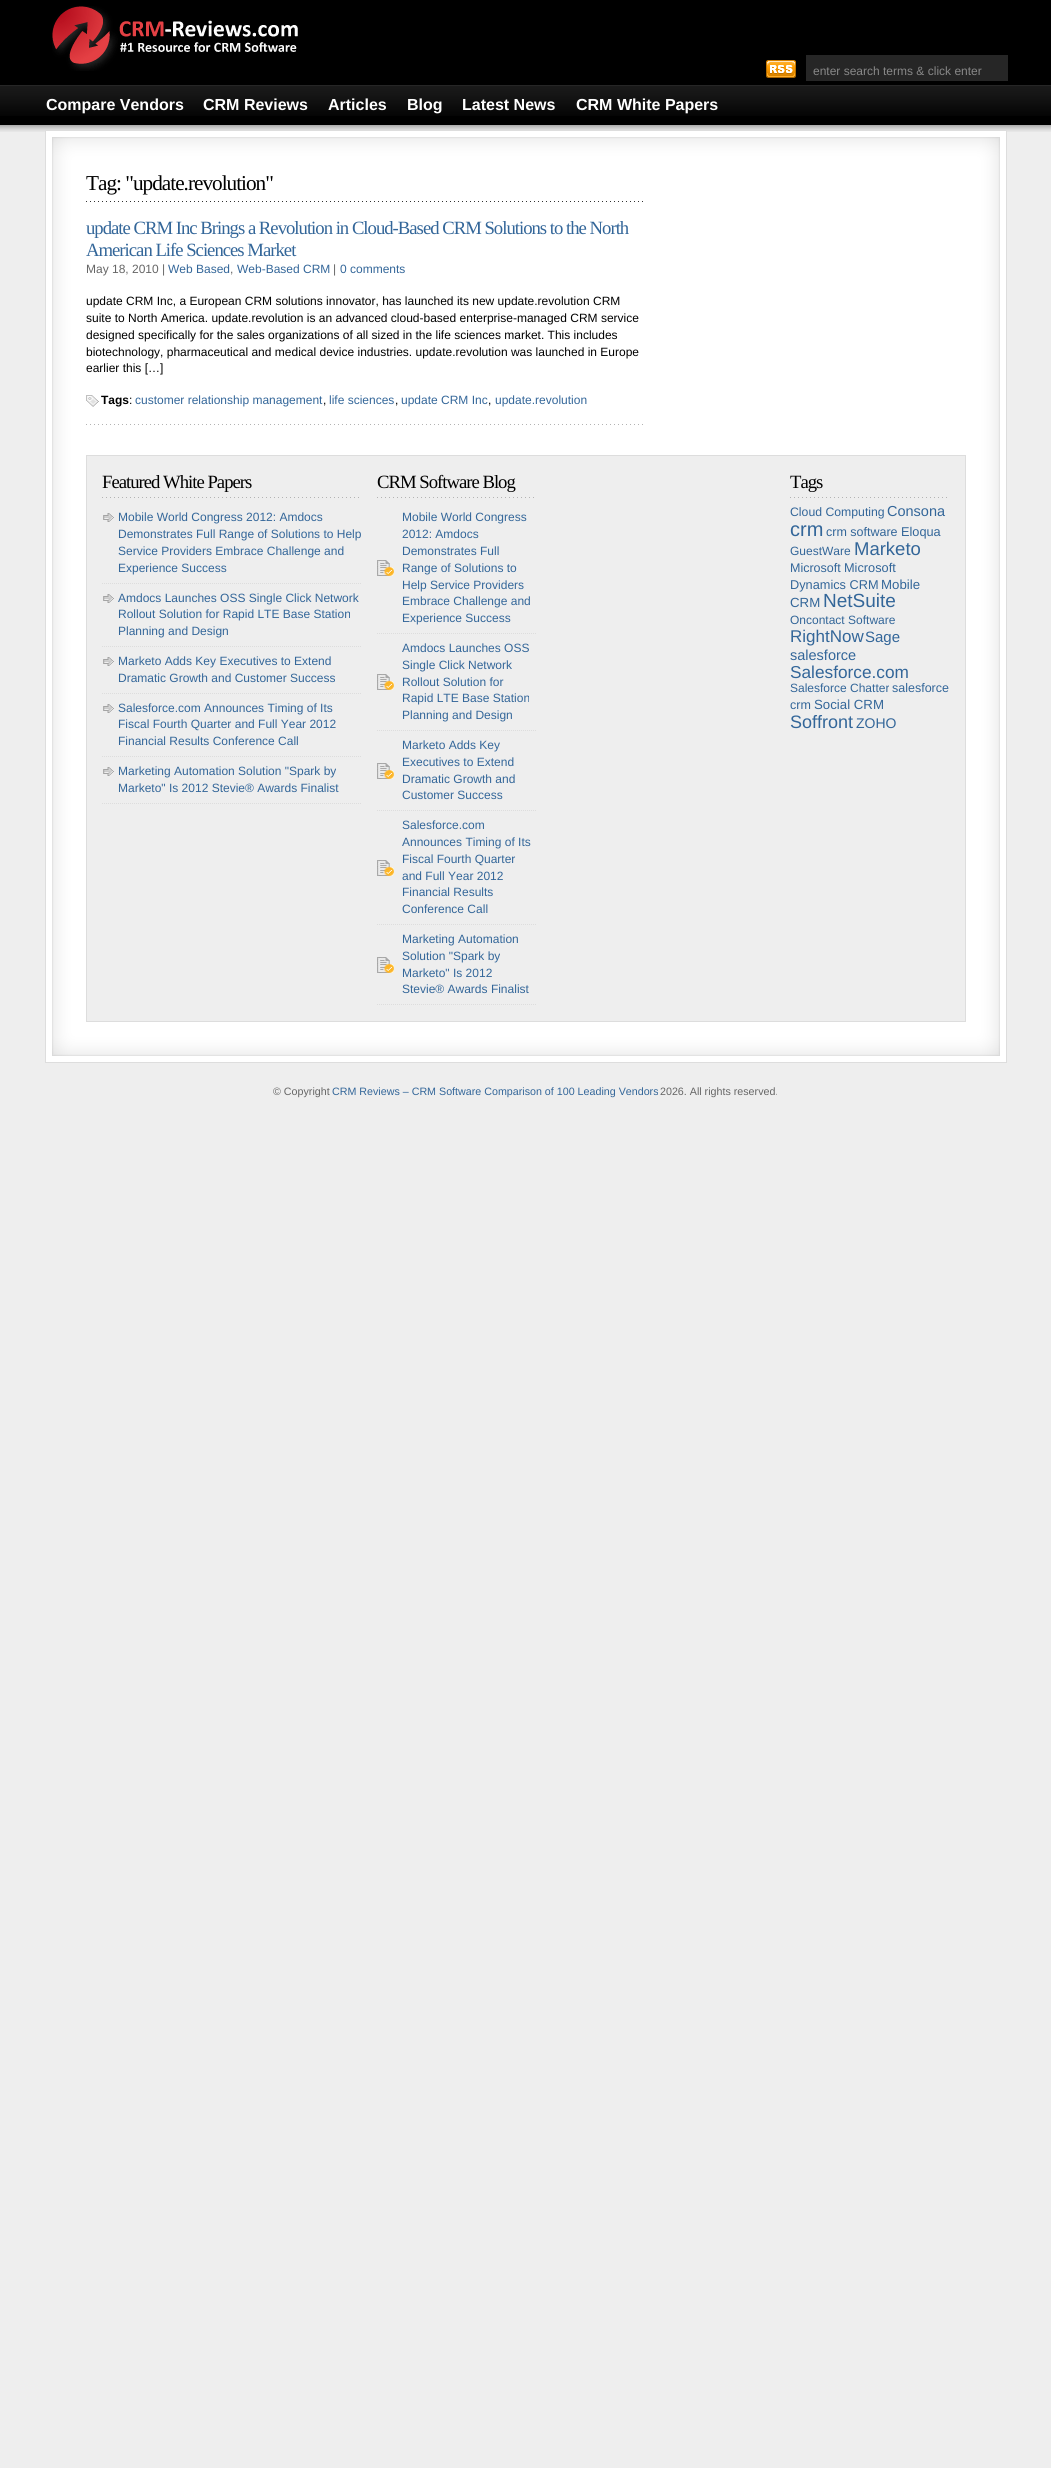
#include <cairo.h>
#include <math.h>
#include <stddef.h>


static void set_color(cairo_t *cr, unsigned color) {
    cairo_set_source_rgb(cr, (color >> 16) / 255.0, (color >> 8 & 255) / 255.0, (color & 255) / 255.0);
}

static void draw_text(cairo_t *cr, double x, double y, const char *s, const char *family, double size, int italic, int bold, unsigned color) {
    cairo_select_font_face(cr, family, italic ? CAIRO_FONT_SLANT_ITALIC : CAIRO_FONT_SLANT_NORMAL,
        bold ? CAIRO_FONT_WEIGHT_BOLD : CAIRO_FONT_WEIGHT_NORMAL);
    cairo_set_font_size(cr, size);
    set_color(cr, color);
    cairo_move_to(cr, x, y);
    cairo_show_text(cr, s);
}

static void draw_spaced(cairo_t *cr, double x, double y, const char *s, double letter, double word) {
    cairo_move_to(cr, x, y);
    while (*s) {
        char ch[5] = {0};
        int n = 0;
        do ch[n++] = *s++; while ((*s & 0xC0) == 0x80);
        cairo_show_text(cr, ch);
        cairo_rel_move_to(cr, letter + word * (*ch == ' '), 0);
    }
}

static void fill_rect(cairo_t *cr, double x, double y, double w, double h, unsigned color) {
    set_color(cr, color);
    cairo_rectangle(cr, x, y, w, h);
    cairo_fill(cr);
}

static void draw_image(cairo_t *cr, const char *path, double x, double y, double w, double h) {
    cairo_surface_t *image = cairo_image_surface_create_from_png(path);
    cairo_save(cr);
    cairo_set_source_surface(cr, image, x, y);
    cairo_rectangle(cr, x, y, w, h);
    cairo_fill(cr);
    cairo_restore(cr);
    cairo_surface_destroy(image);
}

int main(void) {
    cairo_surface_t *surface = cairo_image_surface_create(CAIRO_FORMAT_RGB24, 1051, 2468);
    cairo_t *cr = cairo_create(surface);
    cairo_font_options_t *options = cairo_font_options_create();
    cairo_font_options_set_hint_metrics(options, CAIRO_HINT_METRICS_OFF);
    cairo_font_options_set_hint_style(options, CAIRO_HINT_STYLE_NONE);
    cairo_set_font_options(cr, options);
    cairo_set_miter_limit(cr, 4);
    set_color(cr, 0xEEEEEE);
    cairo_paint(cr);
    fill_rect(cr, 0, 0, 1051, 125, 0x000000);
    draw_image(cr, "assets/img1.png", 52, 6, 246, 65);
    draw_image(cr, "assets/img2.png", 766, 60, 30, 18);
    fill_rect(cr, 806, 55, 202, 26, 0x262626);
    draw_text(cr, 813, 75, "enter search terms & click enter", "Liberation Sans", 12, 0, 0, 0x888888);
    draw_image(cr, "assets/img3.png", 0, 85, 1051, 31);
    draw_text(cr, 46, 110, "Compare Vendors", "Liberation Sans", 16, 0, 1, 0xFFFFFF);
    draw_text(cr, 203, 110, "CRM Reviews", "Liberation Sans", 16, 0, 1, 0xFFFFFF);
    draw_text(cr, 328, 110, "Articles", "Liberation Sans", 16, 0, 1, 0xFFFFFF);
    draw_text(cr, 407, 110, "Blog", "Liberation Sans", 16, 0, 1, 0xFFFFFF);
    draw_text(cr, 462, 110, "Latest News", "Liberation Sans", 16, 0, 1, 0xFFFFFF);
    draw_text(cr, 576, 110, "CRM White Papers", "Liberation Sans", 16, 0, 1, 0xFFFFFF);
    draw_image(cr, "assets/img4.png", 0, 125, 1051, 7);
    fill_rect(cr, 46, 131, 960, 931, 0xFFFFFF);
    draw_image(cr, "assets/img5.png", 52, 137, 948, 34);
    fill_rect(cr, 45, 130, 962, 1, 0xDDDDDD);
    fill_rect(cr, 1006, 130, 1, 933, 0xDDDDDD);
    fill_rect(cr, 45, 130, 1, 892, 0xDDDDDD);
    draw_image(cr, "assets/img6.png", 52, 171, 948, 851);
    draw_image(cr, "assets/img7.png", 86, 201, 557, 1);
    cairo_save(cr);
    cairo_rectangle(cr, 86, 171, 560, 269);
    cairo_clip(cr);
    cairo_select_font_face(cr, "Liberation Serif", CAIRO_FONT_SLANT_NORMAL, CAIRO_FONT_WEIGHT_NORMAL);
    cairo_set_font_size(cr, 21.25);
    set_color(cr, 0x000000);
    draw_spaced(cr, 86, 190, "Tag: \"update.revolution\"", -1, 0);
    cairo_restore(cr);
    draw_image(cr, "assets/img8.png", 86, 424, 557, 1);
    cairo_select_font_face(cr, "Liberation Serif", CAIRO_FONT_SLANT_NORMAL, CAIRO_FONT_WEIGHT_NORMAL);
    cairo_set_font_size(cr, 18.7);
    set_color(cr, 0x336699);
    draw_spaced(cr, 86, 234, "update CRM Inc Brings a Revolution in Cloud-Based CRM Solutions to the North", -1, 0);
    draw_spaced(cr, 86, 256, "American Life Sciences Market", -1, 0);
    draw_text(cr, 86, 273, "May 18, 2010 |", "Liberation Sans", 12, 0, 0, 0x666666);
    draw_text(cr, 168, 273, "Web Based", "Liberation Sans", 12, 0, 0, 0x336699);
    draw_text(cr, 230, 273, ",", "Liberation Sans", 12, 0, 0, 0x666666);
    draw_text(cr, 237, 273, "Web-Based CRM", "Liberation Sans", 12, 0, 0, 0x336699);
    draw_text(cr, 333, 273, "|", "Liberation Sans", 12, 0, 0, 0x666666);
    draw_text(cr, 340, 273, "0 comments", "Liberation Sans", 12, 0, 0, 0x336699);
    draw_text(cr, 86, 305, "update CRM Inc, a European CRM solutions innovator, has launched its new update.revolution CRM", "Liberation Sans", 12, 0, 0, 0x000000);
    draw_text(cr, 86, 322, "suite to North America. update.revolution is an advanced cloud-based enterprise-managed CRM service", "Liberation Sans", 12, 0, 0, 0x000000);
    draw_text(cr, 86, 339, "designed specifically for the sales organizations of all sized in the life sciences market. This includes", "Liberation Sans", 12, 0, 0, 0x000000);
    draw_text(cr, 86, 356, "biotechnology, pharmaceutical and medical device industries. update.revolution was launched in Europe", "Liberation Sans", 12, 0, 0, 0x000000);
    draw_text(cr, 86, 372, "earlier this […]", "Liberation Sans", 12, 0, 0, 0x000000);
    draw_image(cr, "assets/img9.png", 86, 395, 13, 12);
    draw_text(cr, 101, 404, "Tags", "Liberation Sans", 12, 0, 1, 0x000000);
    draw_text(cr, 129, 404, ":", "Liberation Sans", 12, 0, 0, 0x000000);
    draw_text(cr, 135, 404, "customer relationship management", "Liberation Sans", 12, 0, 0, 0x336699);
    draw_text(cr, 323, 404, ",", "Liberation Sans", 12, 0, 0, 0x000000);
    draw_text(cr, 329, 404, "life sciences", "Liberation Sans", 12, 0, 0, 0x336699);
    draw_text(cr, 395, 404, ",", "Liberation Sans", 12, 0, 0, 0x000000);
    draw_text(cr, 401, 404, "update CRM Inc", "Liberation Sans", 12, 0, 0, 0x336699);
    draw_text(cr, 488, 404, ",", "Liberation Sans", 12, 0, 0, 0x000000);
    draw_text(cr, 495, 404, "update.revolution", "Liberation Sans", 12, 0, 0, 0x336699);
    set_color(cr, 0xEEEEEE);
    cairo_rectangle(cr, 86.5, 455.5, 879, 566);
    cairo_fill_preserve(cr);
    set_color(cr, 0xDDDDDD);
    cairo_set_line_width(cr, 1);
    cairo_stroke(cr);
    draw_image(cr, "assets/img10.png", 102, 497, 257, 1);
    cairo_select_font_face(cr, "Liberation Serif", CAIRO_FONT_SLANT_NORMAL, CAIRO_FONT_WEIGHT_NORMAL);
    cairo_set_font_size(cr, 18.7);
    set_color(cr, 0x000000);
    draw_spaced(cr, 102, 488, "Featured White Papers", -1, 0);
    draw_image(cr, "assets/img11.png", 103, 513, 11, 9);
    cairo_new_path(cr);
    cairo_move_to(cr, 102, 583.5);
    cairo_line_to(cr, 362, 583.5);
    set_color(cr, 0xDDDDDD);
    cairo_set_dash(cr, (double[]){1, 1}, 2, 0);
    cairo_stroke(cr);
    draw_text(cr, 118, 521, "Mobile World Congress 2012: Amdocs", "Liberation Sans", 12, 0, 0, 0x336699);
    draw_text(cr, 118, 538, "Demonstrates Full Range of Solutions to Help", "Liberation Sans", 12, 0, 0, 0x336699);
    draw_text(cr, 118, 555, "Service Providers Embrace Challenge and", "Liberation Sans", 12, 0, 0, 0x336699);
    draw_text(cr, 118, 572, "Experience Success", "Liberation Sans", 12, 0, 0, 0x336699);
    draw_image(cr, "assets/img11.png", 103, 594, 11, 9);
    cairo_new_path(cr);
    cairo_move_to(cr, 102, 646.5);
    cairo_line_to(cr, 362, 646.5);
    set_color(cr, 0xDDDDDD);
    cairo_stroke(cr);
    draw_text(cr, 118, 602, "Amdocs Launches OSS Single Click Network", "Liberation Sans", 12, 0, 0, 0x336699);
    draw_text(cr, 118, 618, "Rollout Solution for Rapid LTE Base Station", "Liberation Sans", 12, 0, 0, 0x336699);
    draw_text(cr, 118, 635, "Planning and Design", "Liberation Sans", 12, 0, 0, 0x336699);
    draw_image(cr, "assets/img11.png", 103, 657, 11, 9);
    cairo_new_path(cr);
    cairo_move_to(cr, 102, 693.5);
    cairo_line_to(cr, 362, 693.5);
    set_color(cr, 0xDDDDDD);
    cairo_stroke(cr);
    draw_text(cr, 118, 665, "Marketo Adds Key Executives to Extend", "Liberation Sans", 12, 0, 0, 0x336699);
    draw_text(cr, 118, 682, "Dramatic Growth and Customer Success", "Liberation Sans", 12, 0, 0, 0x336699);
    draw_image(cr, "assets/img11.png", 103, 704, 11, 9);
    cairo_new_path(cr);
    cairo_move_to(cr, 102, 756.5);
    cairo_line_to(cr, 362, 756.5);
    set_color(cr, 0xDDDDDD);
    cairo_stroke(cr);
    draw_text(cr, 118, 712, "Salesforce.com Announces Timing of Its", "Liberation Sans", 12, 0, 0, 0x336699);
    draw_text(cr, 118, 728, "Fiscal Fourth Quarter and Full Year 2012", "Liberation Sans", 12, 0, 0, 0x336699);
    draw_text(cr, 118, 745, "Financial Results Conference Call", "Liberation Sans", 12, 0, 0, 0x336699);
    draw_image(cr, "assets/img11.png", 103, 767, 11, 9);
    cairo_new_path(cr);
    cairo_move_to(cr, 102, 803.5);
    cairo_line_to(cr, 362, 803.5);
    set_color(cr, 0xDDDDDD);
    cairo_stroke(cr);
    draw_text(cr, 118, 775, "Marketing Automation Solution \"Spark by", "Liberation Sans", 12, 0, 0, 0x336699);
    draw_text(cr, 118, 792, "Marketo\" Is 2012 Stevie® Awards Finalist", "Liberation Sans", 12, 0, 0, 0x336699);
    draw_image(cr, "assets/img12.png", 377, 497, 157, 1);
    cairo_select_font_face(cr, "Liberation Serif", CAIRO_FONT_SLANT_NORMAL, CAIRO_FONT_WEIGHT_NORMAL);
    cairo_set_font_size(cr, 18.7);
    set_color(cr, 0x000000);
    draw_spaced(cr, 377, 488, "CRM Software Blog", -1, 0);
    draw_image(cr, "assets/img13.png", 377, 560, 17, 16);
    cairo_new_path(cr);
    cairo_move_to(cr, 377, 633.5);
    cairo_line_to(cr, 537, 633.5);
    set_color(cr, 0xDDDDDD);
    cairo_stroke(cr);
    draw_text(cr, 402, 521, "Mobile World Congress", "Liberation Sans", 12, 0, 0, 0x336699);
    draw_text(cr, 402, 538, "2012: Amdocs", "Liberation Sans", 12, 0, 0, 0x336699);
    draw_text(cr, 402, 555, "Demonstrates Full", "Liberation Sans", 12, 0, 0, 0x336699);
    draw_text(cr, 402, 572, "Range of Solutions to", "Liberation Sans", 12, 0, 0, 0x336699);
    draw_text(cr, 402, 589, "Help Service Providers", "Liberation Sans", 12, 0, 0, 0x336699);
    draw_text(cr, 402, 605, "Embrace Challenge and", "Liberation Sans", 12, 0, 0, 0x336699);
    draw_text(cr, 402, 622, "Experience Success", "Liberation Sans", 12, 0, 0, 0x336699);
    draw_image(cr, "assets/img13.png", 377, 674, 17, 16);
    cairo_new_path(cr);
    cairo_move_to(cr, 377, 730.5);
    cairo_line_to(cr, 537, 730.5);
    set_color(cr, 0xDDDDDD);
    cairo_stroke(cr);
    draw_text(cr, 402, 652, "Amdocs Launches OSS", "Liberation Sans", 12, 0, 0, 0x336699);
    draw_text(cr, 402, 669, "Single Click Network", "Liberation Sans", 12, 0, 0, 0x336699);
    draw_text(cr, 402, 686, "Rollout Solution for", "Liberation Sans", 12, 0, 0, 0x336699);
    draw_text(cr, 402, 702, "Rapid LTE Base Station", "Liberation Sans", 12, 0, 0, 0x336699);
    draw_text(cr, 402, 719, "Planning and Design", "Liberation Sans", 12, 0, 0, 0x336699);
    draw_image(cr, "assets/img13.png", 377, 763, 17, 16);
    cairo_new_path(cr);
    cairo_move_to(cr, 377, 810.5);
    cairo_line_to(cr, 537, 810.5);
    set_color(cr, 0xDDDDDD);
    cairo_stroke(cr);
    draw_text(cr, 402, 749, "Marketo Adds Key", "Liberation Sans", 12, 0, 0, 0x336699);
    draw_text(cr, 402, 766, "Executives to Extend", "Liberation Sans", 12, 0, 0, 0x336699);
    draw_text(cr, 402, 783, "Dramatic Growth and", "Liberation Sans", 12, 0, 0, 0x336699);
    draw_text(cr, 402, 799, "Customer Success", "Liberation Sans", 12, 0, 0, 0x336699);
    draw_image(cr, "assets/img13.png", 377, 860, 17, 16);
    cairo_new_path(cr);
    cairo_move_to(cr, 377, 924.5);
    cairo_line_to(cr, 537, 924.5);
    set_color(cr, 0xDDDDDD);
    cairo_stroke(cr);
    draw_text(cr, 402, 829, "Salesforce.com", "Liberation Sans", 12, 0, 0, 0x336699);
    draw_text(cr, 402, 846, "Announces Timing of Its", "Liberation Sans", 12, 0, 0, 0x336699);
    draw_text(cr, 402, 863, "Fiscal Fourth Quarter", "Liberation Sans", 12, 0, 0, 0x336699);
    draw_text(cr, 402, 880, "and Full Year 2012", "Liberation Sans", 12, 0, 0, 0x336699);
    draw_text(cr, 402, 896, "Financial Results", "Liberation Sans", 12, 0, 0, 0x336699);
    draw_text(cr, 402, 913, "Conference Call", "Liberation Sans", 12, 0, 0, 0x336699);
    draw_image(cr, "assets/img13.png", 377, 957, 17, 16);
    cairo_new_path(cr);
    cairo_move_to(cr, 377, 1004.5);
    cairo_line_to(cr, 537, 1004.5);
    set_color(cr, 0xDDDDDD);
    cairo_stroke(cr);
    draw_text(cr, 402, 943, "Marketing Automation", "Liberation Sans", 12, 0, 0, 0x336699);
    draw_text(cr, 402, 960, "Solution \"Spark by", "Liberation Sans", 12, 0, 0, 0x336699);
    draw_text(cr, 402, 977, "Marketo\" Is 2012", "Liberation Sans", 12, 0, 0, 0x336699);
    draw_text(cr, 402, 993, "Stevie® Awards Finalist", "Liberation Sans", 12, 0, 0, 0x336699);
    draw_image(cr, "assets/img12.png", 790, 497, 157, 1);
    cairo_save(cr);
    cairo_rectangle(cr, 790, 471, 160, 262);
    cairo_clip(cr);
    cairo_select_font_face(cr, "Liberation Serif", CAIRO_FONT_SLANT_NORMAL, CAIRO_FONT_WEIGHT_NORMAL);
    cairo_set_font_size(cr, 18.7);
    set_color(cr, 0x000000);
    draw_spaced(cr, 790, 488, "Tags", -1, 0);
    cairo_restore(cr);
    draw_text(cr, 790, 516, "Cloud Computing", "Liberation Sans", 12.25, 0, 0, 0x336699);
    draw_text(cr, 887, 516, "Consona", "Liberation Sans", 14.5, 0, 0, 0x336699);
    draw_text(cr, 790, 536, "crm", "Liberation Sans", 20, 0, 0, 0x336699);
    draw_text(cr, 826, 536, "crm software", "Liberation Sans", 12.5, 0, 0, 0x336699);
    draw_text(cr, 901, 536, "Eloqua", "Liberation Sans", 12.75, 0, 0, 0x336699);
    draw_text(cr, 790, 555, "GuestWare", "Liberation Sans", 12, 0, 0, 0x336699);
    draw_text(cr, 854, 555, "Marketo", "Liberation Sans", 18.5, 0, 0, 0x336699);
    draw_text(cr, 790, 572, "Microsoft", "Liberation Sans", 12.5, 0, 0, 0x336699);
    draw_text(cr, 844, 572, "Microsoft", "Liberation Sans", 12.75, 0, 0, 0x336699);
    draw_text(cr, 790, 589, "Dynamics CRM", "Liberation Sans", 12.75, 0, 0, 0x336699);
    draw_text(cr, 881, 589, "Mobile", "Liberation Sans", 13.25, 0, 0, 0x336699);
    draw_text(cr, 790, 607, "CRM", "Liberation Sans", 13.25, 0, 0, 0x336699);
    draw_text(cr, 823, 607, "NetSuite", "Liberation Sans", 19, 0, 0, 0x336699);
    draw_text(cr, 790, 624, "Oncontact Software", "Liberation Sans", 12, 0, 0, 0x336699);
    draw_text(cr, 790, 642, "RightNow", "Liberation Sans", 17, 0, 0, 0x336699);
    draw_text(cr, 865, 642, "Sage", "Liberation Sans", 15, 0, 0, 0x336699);
    draw_text(cr, 790, 660, "salesforce", "Liberation Sans", 14.5, 0, 0, 0x336699);
    draw_text(cr, 790, 678, "Salesforce.com", "Liberation Sans", 17.25, 0, 0, 0x336699);
    draw_text(cr, 790, 692, "Salesforce Chatter", "Liberation Sans", 12, 0, 0, 0x336699);
    draw_text(cr, 892, 692, "salesforce", "Liberation Sans", 12.5, 0, 0, 0x336699);
    draw_text(cr, 790, 709, "crm", "Liberation Sans", 12.5, 0, 0, 0x336699);
    draw_text(cr, 814, 709, "Social CRM", "Liberation Sans", 13.25, 0, 0, 0x336699);
    draw_text(cr, 790, 728, "Soffront", "Liberation Sans", 18, 0, 0, 0x336699);
    draw_text(cr, 856, 728, "ZOHO", "Liberation Sans", 14, 0, 0, 0x336699);
    draw_image(cr, "assets/img14.png", 52, 1022, 948, 34);
    fill_rect(cr, 45, 1062, 962, 1, 0xDDDDDD);
    fill_rect(cr, 45, 1022, 1, 41, 0xDDDDDD);
    draw_text(cr, 273, 1095, "© Copyright", "Liberation Sans", 10.7, 0, 0, 0x666666);
    draw_text(cr, 332, 1095, "CRM Reviews – CRM Software Comparison of 100 Leading Vendors", "Liberation Sans", 10.7, 0, 0, 0x336699);
    draw_text(cr, 660, 1095, "2026. All rights reserved.", "Liberation Sans", 10.7, 0, 0, 0x666666);
    cairo_surface_write_to_png(surface, "output.png");
    cairo_font_options_destroy(options);
    cairo_destroy(cr);
    cairo_surface_destroy(surface);
    return 0;
}
